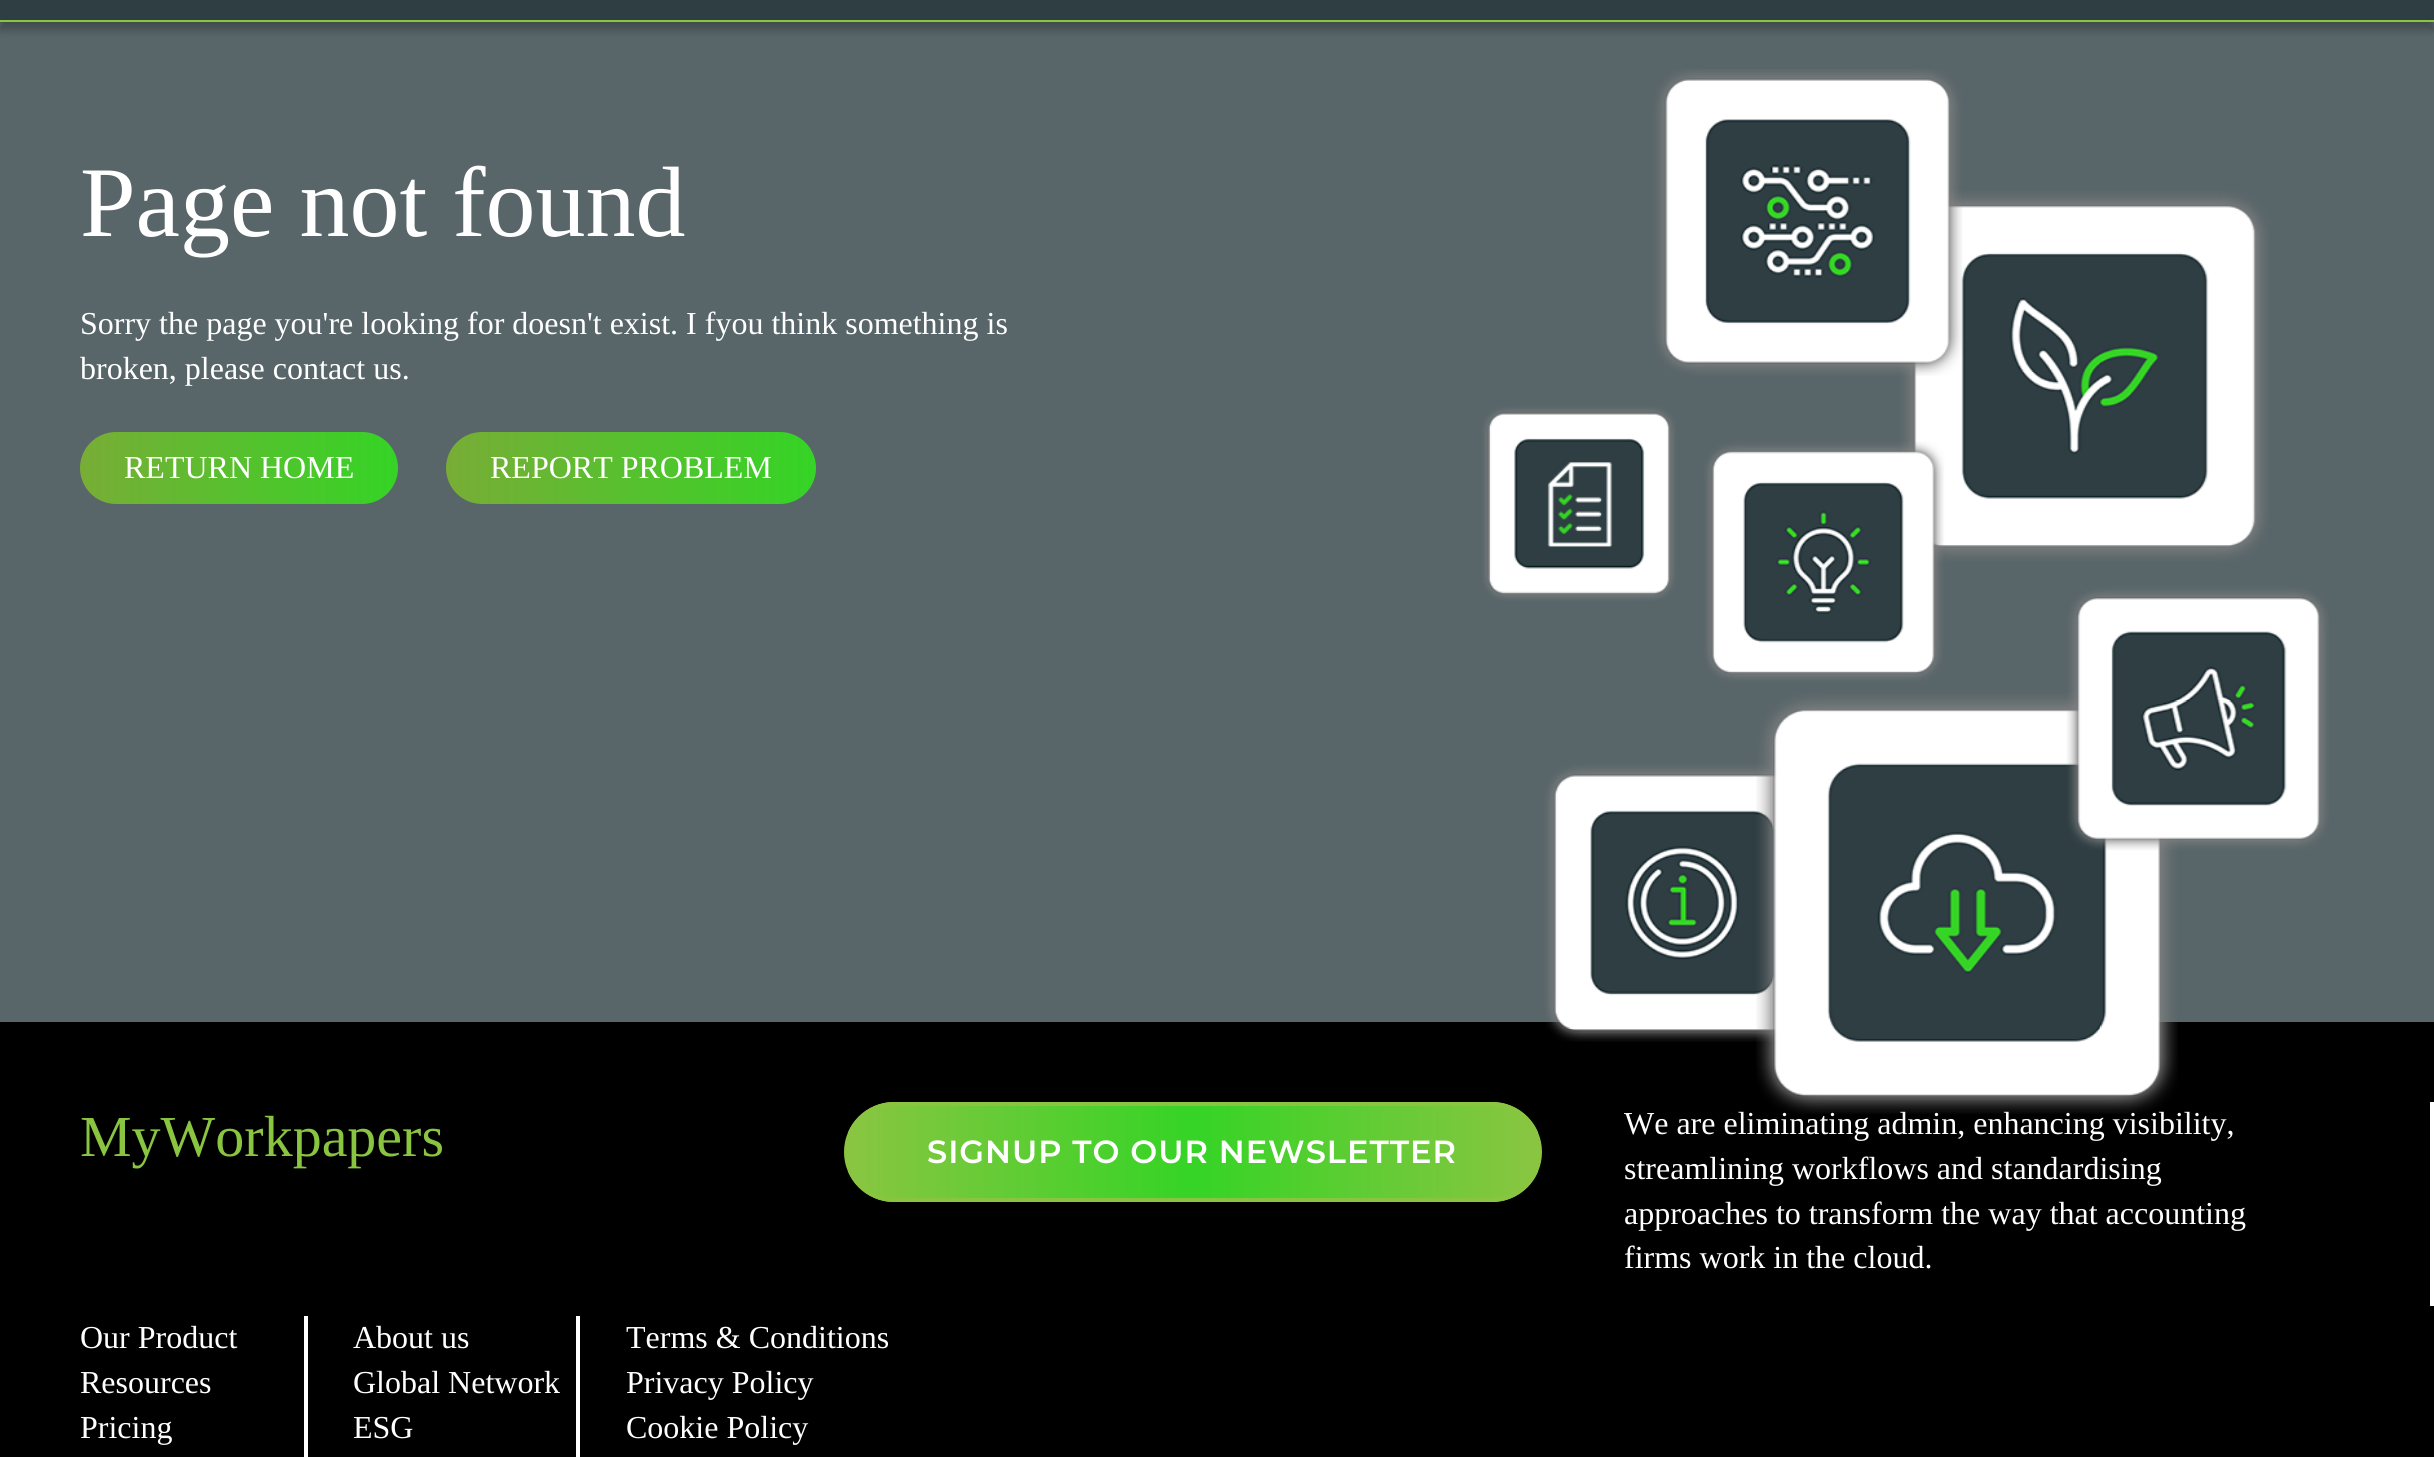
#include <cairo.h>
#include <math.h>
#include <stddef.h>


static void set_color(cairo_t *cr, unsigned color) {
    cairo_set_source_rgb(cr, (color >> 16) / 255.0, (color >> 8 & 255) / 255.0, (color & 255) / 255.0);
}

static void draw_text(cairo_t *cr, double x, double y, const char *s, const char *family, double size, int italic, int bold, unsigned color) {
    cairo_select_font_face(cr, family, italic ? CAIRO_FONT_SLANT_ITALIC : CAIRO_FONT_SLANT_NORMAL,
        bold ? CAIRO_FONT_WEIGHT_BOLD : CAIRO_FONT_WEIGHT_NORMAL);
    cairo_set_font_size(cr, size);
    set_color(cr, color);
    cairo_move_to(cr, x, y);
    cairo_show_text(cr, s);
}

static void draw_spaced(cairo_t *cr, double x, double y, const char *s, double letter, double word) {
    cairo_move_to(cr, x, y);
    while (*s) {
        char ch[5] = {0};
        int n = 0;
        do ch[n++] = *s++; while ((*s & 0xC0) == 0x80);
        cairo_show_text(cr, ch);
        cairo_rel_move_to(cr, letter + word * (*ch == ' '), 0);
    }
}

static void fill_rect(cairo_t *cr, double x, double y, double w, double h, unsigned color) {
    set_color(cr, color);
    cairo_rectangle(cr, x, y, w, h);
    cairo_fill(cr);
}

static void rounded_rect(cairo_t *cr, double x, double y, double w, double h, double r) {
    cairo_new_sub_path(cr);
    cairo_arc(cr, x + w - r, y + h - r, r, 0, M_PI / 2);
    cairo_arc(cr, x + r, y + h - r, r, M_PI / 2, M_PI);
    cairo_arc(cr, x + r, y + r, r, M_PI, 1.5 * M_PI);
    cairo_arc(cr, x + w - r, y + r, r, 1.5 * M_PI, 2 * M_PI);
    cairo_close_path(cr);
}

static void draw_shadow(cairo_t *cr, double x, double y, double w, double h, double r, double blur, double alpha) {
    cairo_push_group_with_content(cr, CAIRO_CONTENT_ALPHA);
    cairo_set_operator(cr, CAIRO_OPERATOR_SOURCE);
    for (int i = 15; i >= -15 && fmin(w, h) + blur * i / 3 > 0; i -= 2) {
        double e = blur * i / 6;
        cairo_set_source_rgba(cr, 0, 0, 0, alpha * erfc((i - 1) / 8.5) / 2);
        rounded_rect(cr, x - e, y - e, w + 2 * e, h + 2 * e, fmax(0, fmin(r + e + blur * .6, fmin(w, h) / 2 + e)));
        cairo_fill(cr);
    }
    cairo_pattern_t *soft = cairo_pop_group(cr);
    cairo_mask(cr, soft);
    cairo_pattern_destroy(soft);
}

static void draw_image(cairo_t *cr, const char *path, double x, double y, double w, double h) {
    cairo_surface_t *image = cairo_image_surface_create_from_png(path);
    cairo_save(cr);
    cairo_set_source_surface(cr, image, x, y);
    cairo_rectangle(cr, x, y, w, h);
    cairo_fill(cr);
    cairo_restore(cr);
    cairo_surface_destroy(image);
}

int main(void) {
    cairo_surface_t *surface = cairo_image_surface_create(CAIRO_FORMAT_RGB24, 2434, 1457);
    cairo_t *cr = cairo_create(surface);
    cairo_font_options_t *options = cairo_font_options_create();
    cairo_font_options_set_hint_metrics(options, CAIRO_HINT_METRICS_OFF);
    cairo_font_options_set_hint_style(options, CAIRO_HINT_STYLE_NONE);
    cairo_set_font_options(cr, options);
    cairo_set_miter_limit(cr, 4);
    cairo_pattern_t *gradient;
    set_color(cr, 0x586569);
    cairo_paint(cr);
    set_color(cr, 0x000000);
    draw_shadow(cr, 0, -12, 2434, 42, 0, 4, 0.25);
    fill_rect(cr, 0, 20, 2434, 2, 0x8AC541);
    fill_rect(cr, 0, 0, 2434, 20, 0x2E3E43);
    draw_text(cr, 80, 236, "Page not found", "Liberation Serif", 100, 0, 0, 0xFFFFFF);
    draw_text(cr, 80, 334, "Sorry the page you're looking for doesn't exist. I fyou think something is", "Liberation Serif", 32, 0, 0, 0xFFFFFF);
    draw_text(cr, 80, 379, "broken, please contact us.", "Liberation Serif", 32, 0, 0, 0xFFFFFF);
    gradient = cairo_pattern_create_linear(80, 468, 716, 468);
    cairo_pattern_add_color_stop_rgba(gradient, 0, 0.471, 0.678, 0.212, 1);
    cairo_pattern_add_color_stop_rgba(gradient, 0.5, 0.208, 0.831, 0.149, 1);
    cairo_pattern_add_color_stop_rgba(gradient, 1, 0.471, 0.678, 0.212, 1);
    cairo_set_source(cr, gradient);
    cairo_pattern_destroy(gradient);
    rounded_rect(cr, 80, 432, 318, 72, 36);
    cairo_fill(cr);
    draw_text(cr, 124, 478, "RETURN HOME", "Liberation Serif", 32, 0, 0, 0xFFFFFF);
    gradient = cairo_pattern_create_linear(446, 468, 1186, 468);
    cairo_pattern_add_color_stop_rgba(gradient, 0, 0.471, 0.678, 0.212, 1);
    cairo_pattern_add_color_stop_rgba(gradient, 0.5, 0.208, 0.831, 0.149, 1);
    cairo_pattern_add_color_stop_rgba(gradient, 1, 0.471, 0.678, 0.212, 1);
    cairo_set_source(cr, gradient);
    cairo_pattern_destroy(gradient);
    rounded_rect(cr, 446, 432, 370, 72, 36);
    cairo_fill(cr);
    draw_text(cr, 490, 478, "REPORT PROBLEM", "Liberation Serif", 32, 0, 0, 0xFFFFFF);
    fill_rect(cr, 0, 1022, 2434, 435, 0x000000);
    cairo_save(cr);
    rounded_rect(cr, 844, 1102, 698, 100, 50);
    cairo_clip(cr);
    gradient = cairo_pattern_create_linear(848, 1152, 1538, 1152);
    cairo_pattern_add_color_stop_rgba(gradient, 0, 0.541, 0.773, 0.255, 1);
    cairo_pattern_add_color_stop_rgba(gradient, 0.5, 0.208, 0.831, 0.149, 1);
    cairo_pattern_add_color_stop_rgba(gradient, 1, 0.541, 0.773, 0.255, 1);
    cairo_set_source(cr, gradient);
    cairo_pattern_destroy(gradient);
    cairo_rectangle(cr, 848, 1102, 690, 100);
    cairo_fill(cr);
    cairo_restore(cr);
    rounded_rect(cr, 846, 1104, 694, 96, 48);
    set_color(cr, 0x8AC541);
    cairo_set_line_width(cr, 4);
    cairo_stroke(cr);
    draw_text(cr, 1624, 1134, "We are eliminating admin, enhancing visibility,", "Liberation Serif", 32, 0, 0, 0xFFFFFF);
    draw_image(cr, "assets/img1.png", 1482, 69, 847, 1045);
    fill_rect(cr, 2430, 1102, 4, 204, 0xFFFFFF);
    draw_text(cr, 80, 1156, "MyWorkpapers", "Liberation Serif", 58, 0, 0, 0x8AC541);
    cairo_select_font_face(cr, "Montserrat SemiBold", CAIRO_FONT_SLANT_NORMAL, CAIRO_FONT_WEIGHT_NORMAL);
    cairo_set_font_size(cr, 32);
    set_color(cr, 0xFFFFFF);
    draw_spaced(cr, 927, 1163, "SIGNUP TO OUR NEWSLETTER", 1, 0);
    draw_text(cr, 1624, 1179, "streamlining workflows and standardising", "Liberation Serif", 32, 0, 0, 0xFFFFFF);
    draw_text(cr, 1624, 1224, "approaches to transform the way that accounting", "Liberation Serif", 32, 0, 0, 0xFFFFFF);
    draw_text(cr, 1624, 1268, "firms work in the cloud.", "Liberation Serif", 32, 0, 0, 0xFFFFFF);
    fill_rect(cr, 304, 1316, 4, 141, 0xFFFFFF);
    draw_text(cr, 80, 1348, "Our Product", "Liberation Serif", 32, 0, 0, 0xFFFFFF);
    draw_text(cr, 80, 1393, "Resources", "Liberation Serif", 32, 0, 0, 0xFFFFFF);
    draw_text(cr, 80, 1438, "Pricing", "Liberation Serif", 32, 0, 0, 0xFFFFFF);
    fill_rect(cr, 576, 1316, 4, 141, 0xFFFFFF);
    draw_text(cr, 353, 1348, "About us", "Liberation Serif", 32, 0, 0, 0xFFFFFF);
    draw_text(cr, 353, 1393, "Global Network", "Liberation Serif", 32, 0, 0, 0xFFFFFF);
    draw_text(cr, 353, 1438, "ESG", "Liberation Serif", 32, 0, 0, 0xFFFFFF);
    draw_text(cr, 626, 1348, "Terms & Conditions", "Liberation Serif", 32, 0, 0, 0xFFFFFF);
    draw_text(cr, 626, 1393, "Privacy Policy", "Liberation Serif", 32, 0, 0, 0xFFFFFF);
    draw_text(cr, 626, 1438, "Cookie Policy", "Liberation Serif", 32, 0, 0, 0xFFFFFF);
    cairo_surface_write_to_png(surface, "output.png");
    cairo_font_options_destroy(options);
    cairo_destroy(cr);
    cairo_surface_destroy(surface);
    return 0;
}
